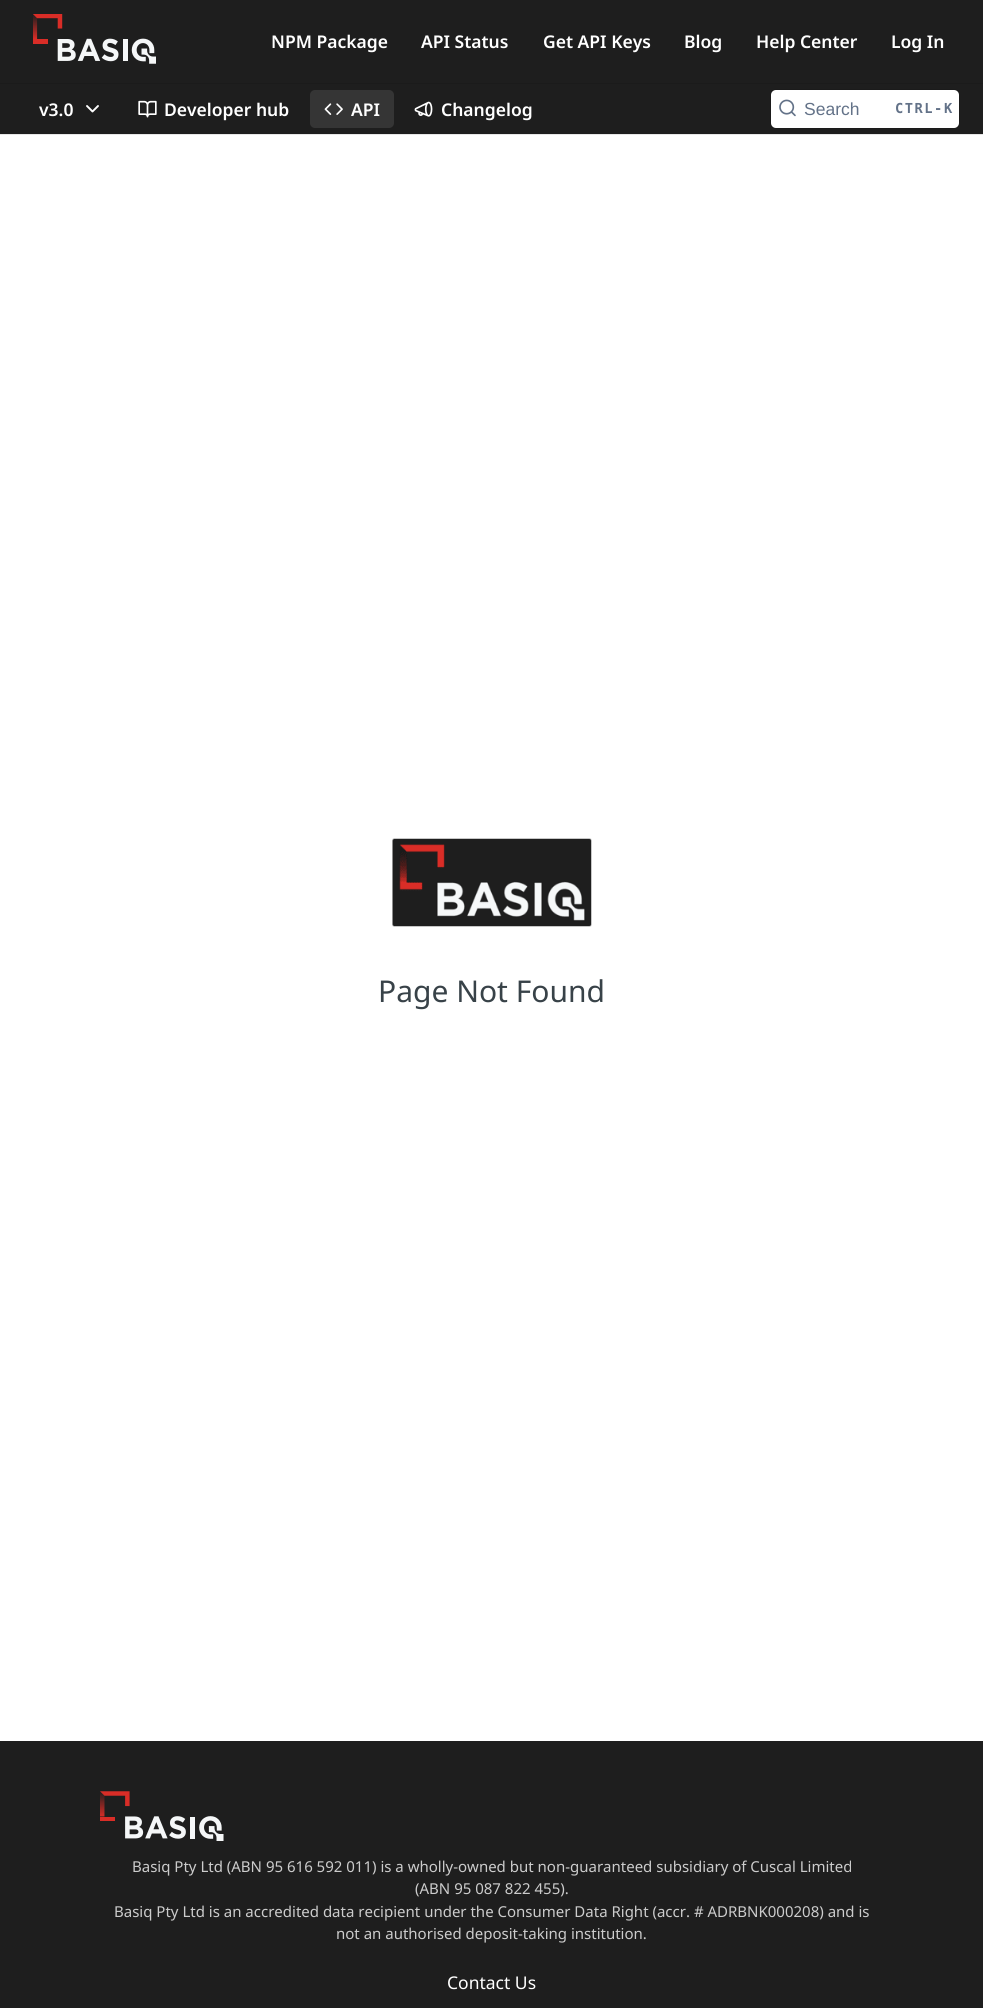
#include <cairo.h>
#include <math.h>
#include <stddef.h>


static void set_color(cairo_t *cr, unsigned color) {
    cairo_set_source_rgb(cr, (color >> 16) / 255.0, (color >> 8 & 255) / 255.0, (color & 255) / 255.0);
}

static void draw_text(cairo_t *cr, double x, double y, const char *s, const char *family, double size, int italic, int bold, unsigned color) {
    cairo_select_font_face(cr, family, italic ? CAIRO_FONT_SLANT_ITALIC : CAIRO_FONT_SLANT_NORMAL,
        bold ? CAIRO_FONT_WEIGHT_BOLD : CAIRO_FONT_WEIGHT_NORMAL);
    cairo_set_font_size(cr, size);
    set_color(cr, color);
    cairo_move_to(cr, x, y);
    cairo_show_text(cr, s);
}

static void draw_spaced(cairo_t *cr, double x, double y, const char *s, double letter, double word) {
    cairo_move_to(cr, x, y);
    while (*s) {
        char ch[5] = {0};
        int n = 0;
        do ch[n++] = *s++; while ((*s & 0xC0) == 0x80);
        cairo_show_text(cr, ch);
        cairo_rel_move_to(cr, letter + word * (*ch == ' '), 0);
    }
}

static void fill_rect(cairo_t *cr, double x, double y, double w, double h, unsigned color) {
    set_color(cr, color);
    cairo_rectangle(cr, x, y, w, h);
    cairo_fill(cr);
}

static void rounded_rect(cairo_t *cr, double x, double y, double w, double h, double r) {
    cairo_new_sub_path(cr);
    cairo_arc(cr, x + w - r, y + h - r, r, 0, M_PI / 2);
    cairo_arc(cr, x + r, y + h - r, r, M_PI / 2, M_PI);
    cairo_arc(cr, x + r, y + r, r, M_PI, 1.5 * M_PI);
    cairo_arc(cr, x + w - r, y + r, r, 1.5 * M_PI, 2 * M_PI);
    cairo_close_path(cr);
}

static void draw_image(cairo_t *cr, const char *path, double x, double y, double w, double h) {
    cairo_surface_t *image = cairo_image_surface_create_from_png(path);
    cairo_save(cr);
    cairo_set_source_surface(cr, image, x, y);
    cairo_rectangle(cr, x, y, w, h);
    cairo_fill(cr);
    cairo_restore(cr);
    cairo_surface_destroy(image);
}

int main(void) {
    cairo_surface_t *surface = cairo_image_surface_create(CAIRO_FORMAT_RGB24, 983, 2008);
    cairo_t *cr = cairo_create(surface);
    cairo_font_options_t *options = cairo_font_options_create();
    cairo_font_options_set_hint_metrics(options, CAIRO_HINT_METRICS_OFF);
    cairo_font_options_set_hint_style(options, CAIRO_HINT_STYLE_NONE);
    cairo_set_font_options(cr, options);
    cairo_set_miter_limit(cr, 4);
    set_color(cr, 0xFFFFFF);
    cairo_paint(cr);
    set_color(cr, 0xE6E6E6);
    cairo_new_path(cr);
    cairo_move_to(cr, 0, 134);
    cairo_line_to(cr, 0, 135);
    cairo_line_to(cr, 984, 135);
    cairo_line_to(cr, 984, 1);
    cairo_line_to(cr, 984, 134);
    cairo_close_path(cr);
    cairo_fill(cr);
    fill_rect(cr, 0, 0, 983, 134, 0x1E1E1E);
    fill_rect(cr, 0, 83, 983, 1, 0x1B1B1B);
    draw_image(cr, "assets/img1.png", 33, 14, 123, 50);
    draw_text(cr, 271, 48, "NPM Package", "Noto Sans SemiBold", 17.5, 0, 0, 0xFFFFFF);
    draw_text(cr, 421, 48, "API Status", "Noto Sans SemiBold", 17.5, 0, 0, 0xFFFFFF);
    draw_text(cr, 543, 48, "Get API Keys", "Noto Sans SemiBold", 17.5, 0, 0, 0xFFFFFF);
    draw_text(cr, 684, 48, "Blog", "Noto Sans SemiBold", 17.5, 0, 0, 0xFFFFFF);
    draw_text(cr, 756, 48, "Help Center", "Noto Sans SemiBold", 17.5, 0, 0, 0xFFFFFF);
    draw_text(cr, 891, 48, "Log In", "Noto Sans SemiBold", 17.5, 0, 0, 0xFFFFFF);
    draw_text(cr, 39, 116, "v3.0", "Noto Sans SemiBold", 17.5, 0, 0, 0xFFFFFF);
    cairo_new_path(cr);
    cairo_move_to(cr, 87, 106);
    cairo_line_to(cr, 92.5, 111.5);
    cairo_line_to(cr, 98, 106);
    cairo_set_line_width(cr, 1.9);
    cairo_set_line_cap(cr, CAIRO_LINE_CAP_ROUND);
    cairo_set_line_join(cr, CAIRO_LINE_JOIN_ROUND);
    cairo_stroke(cr);
    draw_image(cr, "assets/img2.png", 138, 100, 19, 18);
    draw_text(cr, 164, 116, "Developer hub", "Noto Sans SemiBold", 17.5, 0, 0, 0xFFFFFF);
    set_color(cr, 0x353535);
    rounded_rect(cr, 310, 90, 84, 38, 5);
    cairo_fill(cr);
    draw_image(cr, "assets/img3.png", 324, 103, 19, 12);
    draw_text(cr, 351, 116, "API", "Noto Sans SemiBold", 17.5, 0, 0, 0xFFFFFF);
    draw_image(cr, "assets/img4.png", 414, 101, 19, 16);
    draw_text(cr, 441, 116, "Changelog", "Noto Sans SemiBold", 17.5, 0, 0, 0xFFFFFF);
    rounded_rect(cr, 770.5, 89.5, 189, 39, 5.5);
    set_color(cr, 0x1B1B1B);
    cairo_set_line_width(cr, 1);
    cairo_set_line_cap(cr, CAIRO_LINE_CAP_BUTT);
    cairo_set_line_join(cr, CAIRO_LINE_JOIN_MITER);
    cairo_stroke(cr);
    set_color(cr, 0xFFFFFF);
    rounded_rect(cr, 771, 90, 188, 38, 5);
    cairo_fill(cr);
    draw_image(cr, "assets/img5.png", 779, 99, 17, 18);
    draw_text(cr, 804, 115, "Search", "Liberation Sans", 17.5, 0, 0, 0x637288);
    cairo_select_font_face(cr, "DejaVu Sans Mono", CAIRO_FONT_SLANT_NORMAL, CAIRO_FONT_WEIGHT_BOLD);
    cairo_set_font_size(cr, 13.75);
    draw_spaced(cr, 895, 113, "CTRL-K", 1.5, 0);
    draw_image(cr, "assets/img6.png", 392, 838, 200, 89);
    draw_text(cr, 378, 1002, "Page Not Found", "Noto Sans", 30, 0, 0, 0x384248);
    fill_rect(cr, 0, 1741, 983, 267, 0x1E1E1E);
    draw_image(cr, "assets/img7.png", 100, 1791, 124, 50);
    draw_text(cr, 132, 1872, "Basiq Pty Ltd (ABN 95 616 592 011) is a wholly-owned but non-guaranteed subsidiary of Cuscal Limited", "Noto Sans", 15, 0, 0, 0xCCCCCC);
    draw_text(cr, 415, 1894, "(ABN 95 087 822 455).", "Noto Sans", 15, 0, 0, 0xCCCCCC);
    draw_text(cr, 114, 1917, "Basiq Pty Ltd is an accredited data recipient under the Consumer Data Right (accr. # ADRBNK000208) and is", "Noto Sans", 15, 0, 0, 0xCCCCCC);
    draw_text(cr, 336, 1939, "not an authorised deposit-taking institution.", "Noto Sans", 15, 0, 0, 0xCCCCCC);
    draw_text(cr, 447, 1989, "Contact Us", "Noto Sans", 17.5, 0, 0, 0xFFFFFF);
    cairo_surface_write_to_png(surface, "output.png");
    cairo_font_options_destroy(options);
    cairo_destroy(cr);
    cairo_surface_destroy(surface);
    return 0;
}
